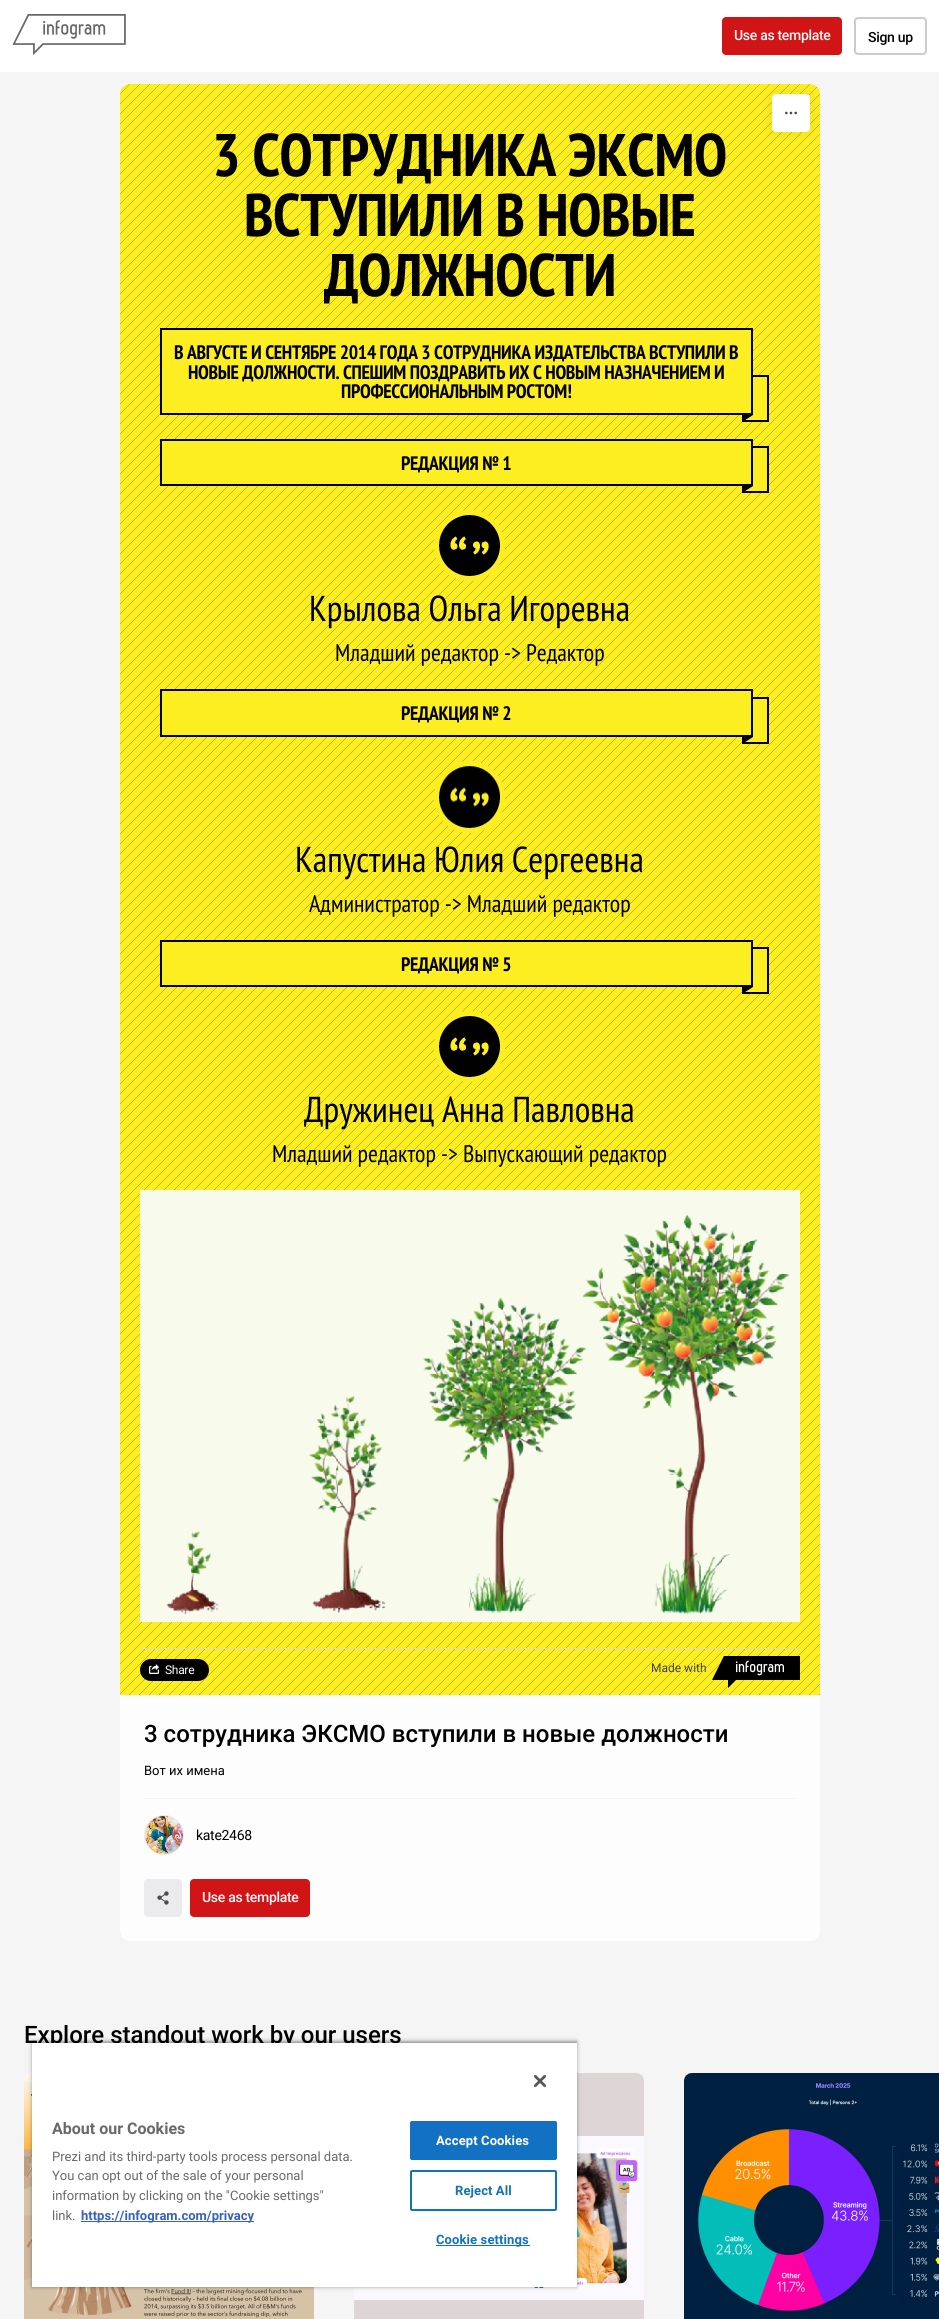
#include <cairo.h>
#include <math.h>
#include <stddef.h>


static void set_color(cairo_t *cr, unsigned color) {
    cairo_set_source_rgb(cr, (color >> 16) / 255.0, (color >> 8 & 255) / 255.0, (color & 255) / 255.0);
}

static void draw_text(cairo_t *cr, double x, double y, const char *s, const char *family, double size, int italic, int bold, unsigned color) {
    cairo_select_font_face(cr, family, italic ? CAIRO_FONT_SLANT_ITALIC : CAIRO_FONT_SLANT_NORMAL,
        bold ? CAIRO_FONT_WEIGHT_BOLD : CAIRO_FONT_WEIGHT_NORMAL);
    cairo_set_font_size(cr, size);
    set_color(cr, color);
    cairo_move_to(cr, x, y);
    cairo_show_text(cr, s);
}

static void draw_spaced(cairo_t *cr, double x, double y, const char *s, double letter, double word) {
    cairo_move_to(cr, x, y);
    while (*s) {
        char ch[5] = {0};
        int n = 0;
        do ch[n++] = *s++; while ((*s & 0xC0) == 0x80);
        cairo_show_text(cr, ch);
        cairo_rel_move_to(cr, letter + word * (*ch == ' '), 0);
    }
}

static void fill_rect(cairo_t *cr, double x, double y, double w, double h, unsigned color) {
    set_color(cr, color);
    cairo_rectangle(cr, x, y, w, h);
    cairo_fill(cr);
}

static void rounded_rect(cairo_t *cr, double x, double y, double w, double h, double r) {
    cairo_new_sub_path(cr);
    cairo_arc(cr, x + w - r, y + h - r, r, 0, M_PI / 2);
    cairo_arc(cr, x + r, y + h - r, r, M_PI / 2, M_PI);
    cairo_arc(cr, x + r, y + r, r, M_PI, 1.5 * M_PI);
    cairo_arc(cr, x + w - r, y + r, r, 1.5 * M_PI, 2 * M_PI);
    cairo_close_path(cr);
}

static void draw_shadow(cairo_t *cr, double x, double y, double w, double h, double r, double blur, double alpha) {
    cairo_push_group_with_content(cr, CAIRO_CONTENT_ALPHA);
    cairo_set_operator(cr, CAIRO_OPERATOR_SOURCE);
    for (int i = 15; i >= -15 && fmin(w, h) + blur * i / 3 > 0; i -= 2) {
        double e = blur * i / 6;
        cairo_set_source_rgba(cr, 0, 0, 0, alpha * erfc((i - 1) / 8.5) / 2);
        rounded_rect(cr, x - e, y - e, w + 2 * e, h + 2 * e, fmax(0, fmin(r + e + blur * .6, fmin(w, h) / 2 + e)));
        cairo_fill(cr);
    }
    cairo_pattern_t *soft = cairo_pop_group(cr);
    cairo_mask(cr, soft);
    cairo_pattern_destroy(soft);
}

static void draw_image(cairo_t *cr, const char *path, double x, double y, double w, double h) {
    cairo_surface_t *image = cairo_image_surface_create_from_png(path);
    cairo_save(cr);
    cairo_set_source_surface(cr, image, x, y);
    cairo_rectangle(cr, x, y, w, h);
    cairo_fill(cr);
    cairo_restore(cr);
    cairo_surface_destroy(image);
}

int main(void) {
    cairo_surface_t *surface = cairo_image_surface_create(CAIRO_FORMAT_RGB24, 939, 2319);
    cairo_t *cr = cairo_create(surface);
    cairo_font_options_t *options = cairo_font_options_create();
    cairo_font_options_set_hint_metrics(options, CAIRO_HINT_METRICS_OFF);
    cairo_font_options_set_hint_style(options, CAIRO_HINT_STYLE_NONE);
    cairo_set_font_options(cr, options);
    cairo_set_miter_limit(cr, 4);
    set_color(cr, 0xF5F5F6);
    cairo_paint(cr);
    fill_rect(cr, 0, 0, 939, 72, 0xFFFFFF);
    draw_image(cr, "assets/img1.png", 12, 14, 114, 41);
    set_color(cr, 0xD11416);
    rounded_rect(cr, 722, 17, 120, 38, 4);
    cairo_fill(cr);
    cairo_select_font_face(cr, "Roboto Medium", CAIRO_FONT_SLANT_NORMAL, CAIRO_FONT_WEIGHT_NORMAL);
    cairo_set_font_size(cr, 14);
    set_color(cr, 0xFFFFFF);
    draw_spaced(cr, 734, 40, "Use as template", -0.3, 0);
    rounded_rect(cr, 855, 18, 71, 36, 3);
    set_color(cr, 0xCCCCCC);
    cairo_stroke(cr);
    set_color(cr, 0x000000);
    draw_spaced(cr, 868, 42, "Sign up", -0.3, 0);
    set_color(cr, 0xFCEE21);
    cairo_new_path(cr);
    cairo_move_to(cr, 130, 84);
    cairo_line_to(cr, 810, 84);
    cairo_curve_to(cr, 815.5, 84, 820, 88.5, 820, 94);
    cairo_line_to(cr, 820, 1695);
    cairo_line_to(cr, 120, 1695);
    cairo_line_to(cr, 120, 94);
    cairo_curve_to(cr, 120, 88.5, 124.5, 84, 130, 84);
    cairo_close_path(cr);
    cairo_fill(cr);
    draw_image(cr, "assets/img3.png", 120, 84, 700, 1611);
    set_color(cr, 0x000000);
    draw_shadow(cr, 768, 90, 46, 46, 8, 5, 0.04);
    set_color(cr, 0xFFFFFF);
    rounded_rect(cr, 772, 94, 38, 38, 4);
    cairo_fill(cr);
    draw_image(cr, "assets/img2.png", 785, 111, 12, 4);
    cairo_select_font_face(cr, "PT Sans Narrow", CAIRO_FONT_SLANT_NORMAL, CAIRO_FONT_WEIGHT_BOLD);
    cairo_set_font_size(cr, 60);
    set_color(cr, 0x000000);
    draw_spaced(cr, 212, 176, "3 СОТРУДНИКА ЭКСМО", -0.3, 0);
    draw_spaced(cr, 244, 236, "ВСТУПИЛИ В НОВЫЕ", -0.3, 0);
    draw_spaced(cr, 324, 296, "ДОЛЖНОСТИ", -0.3, 0);
    set_color(cr, 0xFCEE21);
    cairo_rectangle(cr, 161, 329, 591, 85);
    cairo_fill_preserve(cr);
    set_color(cr, 0x000000);
    cairo_stroke(cr);
    cairo_set_font_size(cr, 19.5);
    draw_spaced(cr, 174, 359, "В АВГУСТЕ И СЕНТЯБРЕ 2014 ГОДА 3 СОТРУДНИКА ИЗДАТЕЛЬСТВА ВСТУПИЛИ В", -0.3, 0);
    draw_spaced(cr, 188, 379, "НОВЫЕ ДОЛЖНОСТИ. СПЕШИМ ПОЗДРАВИТЬ ИХ С НОВЫМ НАЗНАЧЕНИЕМ И", -0.3, 0);
    draw_image(cr, "assets/img4.png", 742, 375, 27, 47);
    draw_spaced(cr, 341, 398, "ПРОФЕССИОНАЛЬНЫМ РОСТОМ!", -0.3, 0);
    set_color(cr, 0xFCEE21);
    cairo_rectangle(cr, 161, 440, 591, 45);
    cairo_fill_preserve(cr);
    set_color(cr, 0x000000);
    cairo_stroke(cr);
    draw_spaced(cr, 401, 470, "РЕДАКЦИЯ № 1", -0.3, 0);
    draw_image(cr, "assets/img4.png", 742, 446, 27, 47);
    draw_image(cr, "assets/img5.png", 434, 510, 71, 71);
    draw_text(cr, 309, 621, "Крылова Ольга Игоревна", "PT Sans Narrow", 36, 0, 0, 0x000000);
    draw_text(cr, 335, 661, "Младший редактор -> Редактор", "PT Sans Narrow", 24, 0, 0, 0x000000);
    set_color(cr, 0xFCEE21);
    cairo_rectangle(cr, 161, 690, 591, 46);
    cairo_fill_preserve(cr);
    set_color(cr, 0x000000);
    cairo_stroke(cr);
    cairo_select_font_face(cr, "PT Sans Narrow", CAIRO_FONT_SLANT_NORMAL, CAIRO_FONT_WEIGHT_BOLD);
    cairo_set_font_size(cr, 19.5);
    draw_spaced(cr, 401, 720, "РЕДАКЦИЯ № 2", -0.3, 0);
    draw_image(cr, "assets/img4.png", 742, 697, 27, 47);
    draw_image(cr, "assets/img6.png", 434, 761, 71, 72);
    draw_text(cr, 295, 872, "Капустина Юлия Сергеевна", "PT Sans Narrow", 36, 0, 0, 0x000000);
    draw_text(cr, 309, 912, "Администратор -> Младший редактор", "PT Sans Narrow", 24, 0, 0, 0x000000);
    set_color(cr, 0xFCEE21);
    cairo_rectangle(cr, 161, 941, 591, 45);
    cairo_fill_preserve(cr);
    set_color(cr, 0x000000);
    cairo_stroke(cr);
    cairo_select_font_face(cr, "PT Sans Narrow", CAIRO_FONT_SLANT_NORMAL, CAIRO_FONT_WEIGHT_BOLD);
    cairo_set_font_size(cr, 19.5);
    draw_spaced(cr, 401, 971, "РЕДАКЦИЯ № 5", -0.3, 0);
    draw_image(cr, "assets/img4.png", 742, 947, 27, 47);
    draw_image(cr, "assets/img7.png", 434, 1011, 71, 71);
    draw_text(cr, 304, 1122, "Дружинец Анна Павловна", "PT Sans Narrow", 36, 0, 0, 0x000000);
    draw_text(cr, 272, 1162, "Младший редактор -> Выпускающий редактор", "PT Sans Narrow", 24, 0, 0, 0x000000);
    draw_image(cr, "assets/img8.png", 140, 1190, 660, 432);
    fill_rect(cr, 140, 1648, 660, 1, 0xDADADA);
    set_color(cr, 0x000000);
    rounded_rect(cr, 140, 1659, 69, 22, 11);
    cairo_fill(cr);
    draw_image(cr, "assets/img9.png", 149, 1664, 10, 10);
    cairo_select_font_face(cr, "Roboto", CAIRO_FONT_SLANT_NORMAL, CAIRO_FONT_WEIGHT_NORMAL);
    cairo_set_font_size(cr, 12);
    set_color(cr, 0xFFFFFF);
    draw_spaced(cr, 165, 1674, "Share", -0.3, 0);
    draw_text(cr, 651, 1672, "Made with", "Roboto", 12, 0, 0, 0x434343);
    draw_image(cr, "assets/img10.png", 712, 1656, 88, 32);
    set_color(cr, 0xFDFDFD);
    cairo_new_path(cr);
    cairo_move_to(cr, 120, 1695);
    cairo_line_to(cr, 820, 1695);
    cairo_line_to(cr, 820, 1931);
    cairo_curve_to(cr, 820, 1936.5, 815.5, 1941, 810, 1941);
    cairo_line_to(cr, 130, 1941);
    cairo_curve_to(cr, 124.5, 1941, 120, 1936.5, 120, 1931);
    cairo_close_path(cr);
    cairo_fill(cr);
    fill_rect(cr, 120, 1695, 700, 1, 0xF5F5F6);
    draw_text(cr, 144, 1742, "3 сотрудника ЭКСМО вступили в новые должности", "Roboto Medium", 24, 0, 0, 0x000000);
    draw_text(cr, 144, 1775, "Вот их имена", "Roboto", 13, 0, 0, 0x000000);
    fill_rect(cr, 144, 1798, 652, 1, 0xF5F5F6);
    set_color(cr, 0xE1E1E1);
    cairo_new_path(cr);
    cairo_arc(cr, 164, 1835, 19.5, 0, 2 * M_PI);
    cairo_fill_preserve(cr);
    set_color(cr, 0xEBEBEE);
    cairo_set_line_width(cr, 1);
    cairo_stroke(cr);
    draw_image(cr, "assets/img11.png", 145, 1816, 38, 38);
    cairo_set_font_size(cr, 14);
    set_color(cr, 0x000000);
    draw_spaced(cr, 196, 1840, "kate2468", -0.3, 0);
    set_color(cr, 0xEBEBEE);
    rounded_rect(cr, 144, 1879, 38, 38, 4);
    cairo_fill(cr);
    draw_image(cr, "assets/img12.png", 157, 1891, 12, 14);
    set_color(cr, 0xD11416);
    rounded_rect(cr, 190, 1879, 120, 38, 4);
    cairo_fill(cr);
    cairo_select_font_face(cr, "Roboto Medium", CAIRO_FONT_SLANT_NORMAL, CAIRO_FONT_WEIGHT_NORMAL);
    set_color(cr, 0xFFFFFF);
    draw_spaced(cr, 202, 1902, "Use as template", -0.3, 0);
    draw_text(cr, 24, 2043, "Explore standout work by our users", "Roboto Medium", 24, 0, 0, 0x000000);
    draw_image(cr, "assets/img13.png", 24, 2073, 290, 246);
    draw_image(cr, "assets/img14.png", 354, 2073, 290, 246);
    draw_image(cr, "assets/img15.png", 684, 2073, 255, 246);
    set_color(cr, 0x000000);
    draw_shadow(cr, 32, 2041, 545, 246, 0, 2, 0.35);
    cairo_save(cr);
    cairo_rectangle(cr, 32, 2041, 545, 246);
    cairo_clip(cr);
    draw_shadow(cr, 32, 2043, 545, 244, 0, 2, 0.2);
    cairo_restore(cr);
    fill_rect(cr, 32, 2043, 545, 244, 0xFFFFFF);
    draw_image(cr, "assets/img16.png", 534, 2075, 12, 12);
    draw_text(cr, 52, 2134, "About our Cookies", "Roboto", 16, 0, 1, 0x696969);
    draw_text(cr, 52, 2161, "Prezi and its third-party tools process personal data.", "Roboto", 13, 0, 0, 0x696969);
    draw_text(cr, 52, 2180, "You can opt out of the sale of your personal", "Roboto", 13, 0, 0, 0x696969);
    draw_text(cr, 52, 2200, "information by clicking on the \"Cookie settings\"", "Roboto", 13, 0, 0, 0x696969);
    draw_text(cr, 52, 2220, "link.", "Roboto", 13, 0, 0, 0x696969);
    fill_rect(cr, 81, 2221, 173, 1, 0x3860BE);
    draw_text(cr, 81, 2220, "https://infogram.com/privacy", "Roboto", 13, 0, 1, 0x3860BE);
    set_color(cr, 0x1371C3);
    rounded_rect(cr, 410.5, 2121.5, 146, 38, 1.5);
    cairo_fill_preserve(cr);
    cairo_stroke(cr);
    set_color(cr, 0xFFFFFF);
    draw_spaced(cr, 436, 2145, "Accept Cookies", 0.1, 0);
    rounded_rect(cr, 411, 2171, 145, 39, 1);
    set_color(cr, 0x1371C3);
    cairo_set_line_width(cr, 2);
    cairo_stroke(cr);
    draw_spaced(cr, 455, 2195, "Reject All", 0.1, 0);
    fill_rect(cr, 436, 2245, 94, 1, 0x1371C3);
    draw_spaced(cr, 436, 2244, "Cookie settings", 0.1, 0);
    cairo_surface_write_to_png(surface, "output.png");
    cairo_font_options_destroy(options);
    cairo_destroy(cr);
    cairo_surface_destroy(surface);
    return 0;
}
